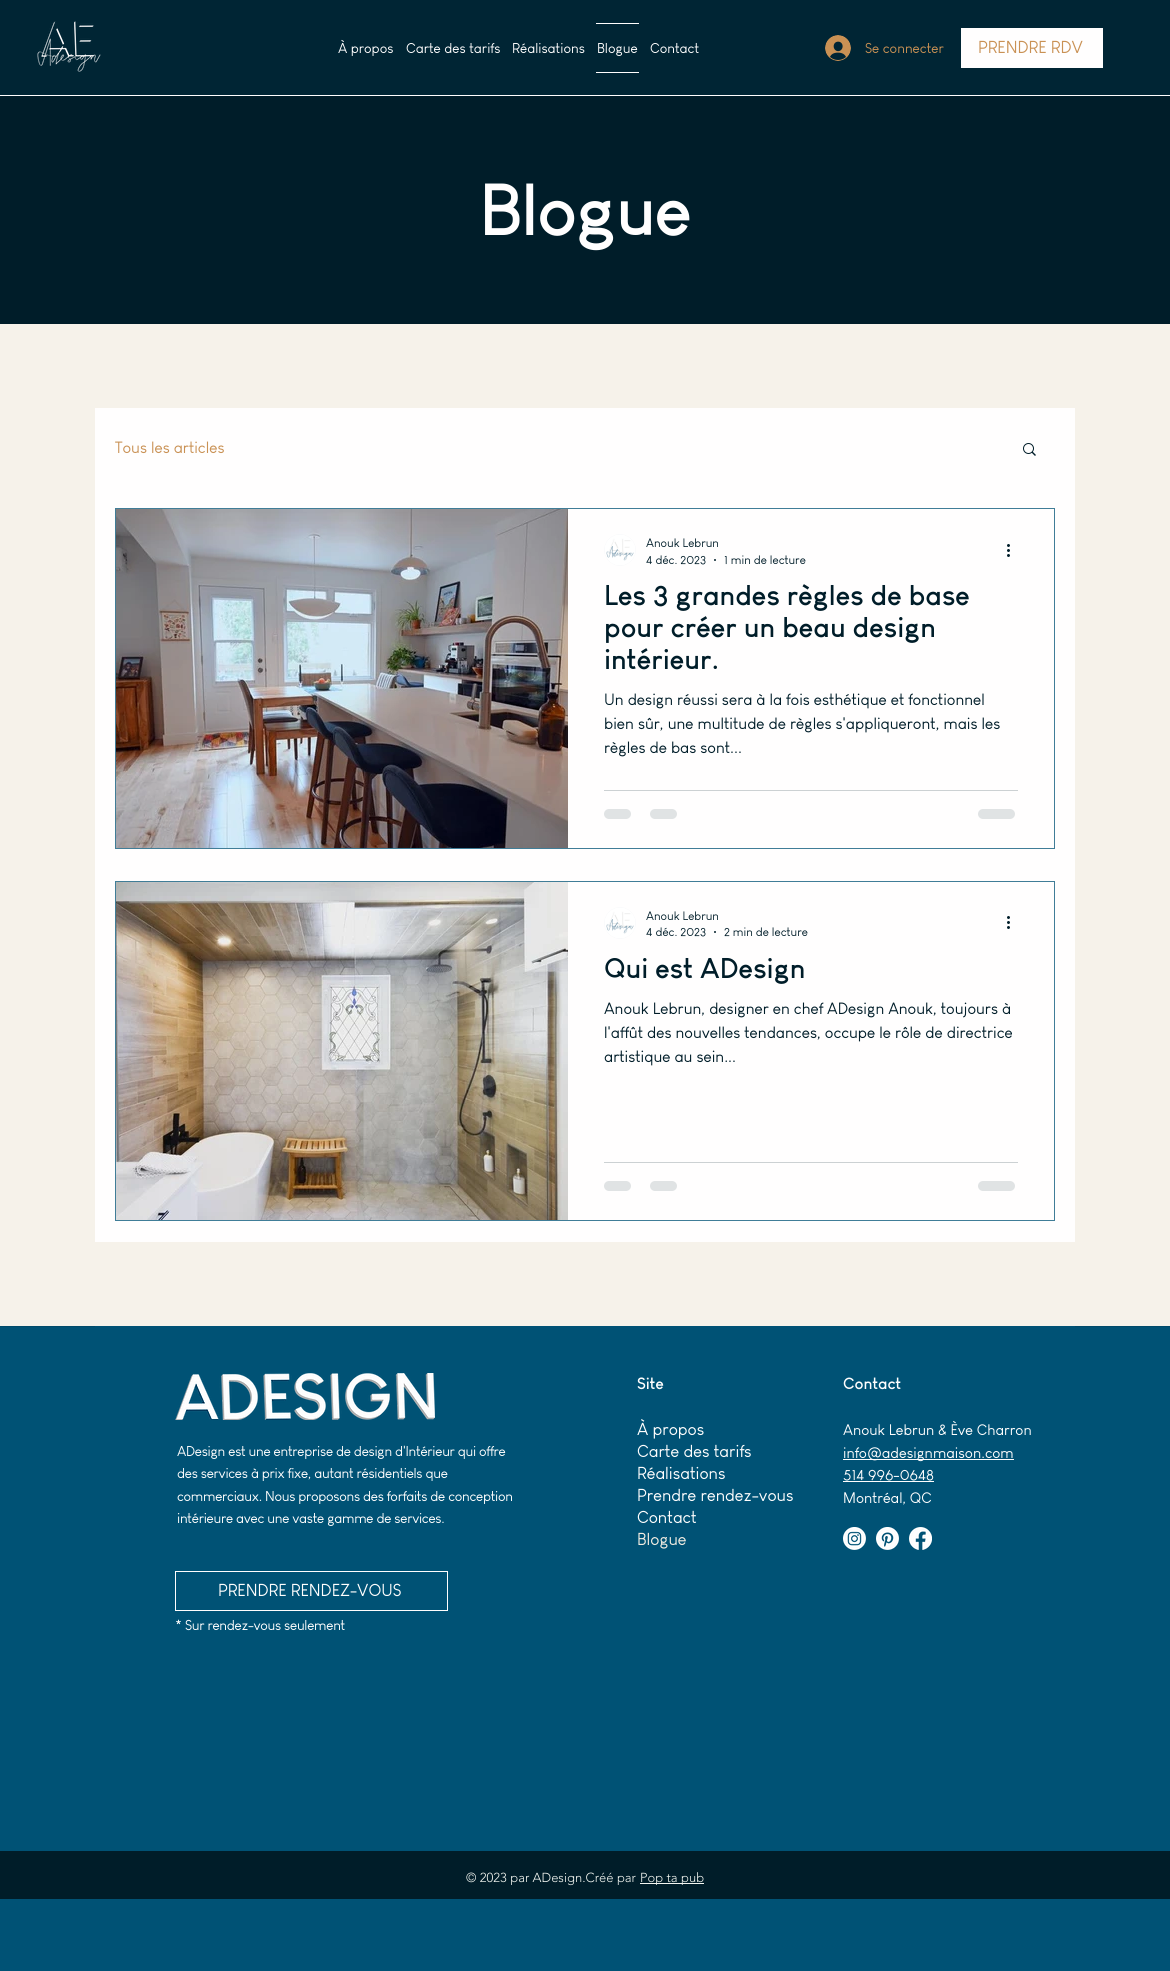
#include <cairo.h>
#include <math.h>
#include <stddef.h>


static void set_color(cairo_t *cr, unsigned color) {
    cairo_set_source_rgb(cr, (color >> 16) / 255.0, (color >> 8 & 255) / 255.0, (color & 255) / 255.0);
}

static void draw_text(cairo_t *cr, double x, double y, const char *s, const char *family, double size, int italic, int bold, unsigned color) {
    cairo_select_font_face(cr, family, italic ? CAIRO_FONT_SLANT_ITALIC : CAIRO_FONT_SLANT_NORMAL,
        bold ? CAIRO_FONT_WEIGHT_BOLD : CAIRO_FONT_WEIGHT_NORMAL);
    cairo_set_font_size(cr, size);
    set_color(cr, color);
    cairo_move_to(cr, x, y);
    cairo_show_text(cr, s);
}

static void draw_spaced(cairo_t *cr, double x, double y, const char *s, double letter, double word) {
    cairo_move_to(cr, x, y);
    while (*s) {
        char ch[5] = {0};
        int n = 0;
        do ch[n++] = *s++; while ((*s & 0xC0) == 0x80);
        cairo_show_text(cr, ch);
        cairo_rel_move_to(cr, letter + word * (*ch == ' '), 0);
    }
}

static void fill_rect(cairo_t *cr, double x, double y, double w, double h, unsigned color) {
    set_color(cr, color);
    cairo_rectangle(cr, x, y, w, h);
    cairo_fill(cr);
}

static void rounded_rect(cairo_t *cr, double x, double y, double w, double h, double r) {
    cairo_new_sub_path(cr);
    cairo_arc(cr, x + w - r, y + h - r, r, 0, M_PI / 2);
    cairo_arc(cr, x + r, y + h - r, r, M_PI / 2, M_PI);
    cairo_arc(cr, x + r, y + r, r, M_PI, 1.5 * M_PI);
    cairo_arc(cr, x + w - r, y + r, r, 1.5 * M_PI, 2 * M_PI);
    cairo_close_path(cr);
}

static void draw_image(cairo_t *cr, const char *path, double x, double y, double w, double h) {
    cairo_surface_t *image = cairo_image_surface_create_from_png(path);
    cairo_save(cr);
    cairo_set_source_surface(cr, image, x, y);
    cairo_rectangle(cr, x, y, w, h);
    cairo_fill(cr);
    cairo_restore(cr);
    cairo_surface_destroy(image);
}

int main(void) {
    cairo_surface_t *surface = cairo_image_surface_create(CAIRO_FORMAT_RGB24, 1170, 1971);
    cairo_t *cr = cairo_create(surface);
    cairo_font_options_t *options = cairo_font_options_create();
    cairo_font_options_set_hint_metrics(options, CAIRO_HINT_METRICS_OFF);
    cairo_font_options_set_hint_style(options, CAIRO_HINT_STYLE_NONE);
    cairo_set_font_options(cr, options);
    cairo_set_miter_limit(cr, 4);
    set_color(cr, 0x005275);
    cairo_paint(cr);
    fill_rect(cr, 0, 95, 1170, 1, 0xFFFEFE);
    fill_rect(cr, 0, 0, 1170, 95, 0x002534);
    draw_image(cr, "assets/img1.png", 37, 21, 64, 51);
    draw_text(cr, 338, 53, "À propos", "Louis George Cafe", 14, 0, 0, 0xFFFEFE);
    draw_text(cr, 406, 53, "Carte des tarifs", "Louis George Cafe", 14, 0, 0, 0xFFFEFE);
    draw_text(cr, 512, 53, "Réalisations", "Louis George Cafe", 14, 0, 0, 0xFFFEFE);
    fill_rect(cr, 596, 23, 43, 1, 0xFFFEFE);
    fill_rect(cr, 596, 72, 43, 1, 0xFFFEFE);
    draw_text(cr, 597, 53, "Blogue", "Louis George Cafe", 14, 0, 0, 0xFFFEFE);
    draw_text(cr, 650, 53, "Contact", "Louis George Cafe", 14, 0, 0, 0xFFFEFE);
    draw_image(cr, "assets/img2.png", 825, 35, 26, 26);
    draw_text(cr, 865, 53, "Se connecter", "Louis George Cafe", 14, 0, 0, 0xC99154);
    fill_rect(cr, 961, 28, 142, 40, 0xFFFEFE);
    draw_text(cr, 978, 53, "PRENDRE RDV", "Louis George Cafe", 17, 0, 0, 0xC99154);
    fill_rect(cr, 0, 96, 1170, 228, 0x001D29);
    cairo_select_font_face(cr, "Louis George Cafe", CAIRO_FONT_SLANT_NORMAL, CAIRO_FONT_WEIGHT_BOLD);
    cairo_set_font_size(cr, 72);
    set_color(cr, 0xFFFEFE);
    draw_spaced(cr, 479, 235, "Blogue", -1.5, 0);
    fill_rect(cr, 0, 324, 1170, 1002, 0xF6F2EA);
    fill_rect(cr, 95, 408, 980, 834, 0xFFFEFE);
    draw_text(cr, 115, 453, "Tous les articles", "Louis George Cafe", 16, 0, 0, 0xC99154);
    draw_image(cr, "assets/img3.png", 1023, 443, 13, 13);
    cairo_rectangle(cr, 115.5, 508.5, 939, 340);
    set_color(cr, 0x407D97);
    cairo_set_line_width(cr, 1);
    cairo_stroke(cr);
    draw_image(cr, "assets/img4.png", 116, 509, 452, 339);
    draw_image(cr, "assets/img5.png", 604, 534, 32, 32);
    draw_text(cr, 646, 547, "Anouk Lebrun", "Louis George Cafe", 12, 0, 0, 0x001D29);
    draw_text(cr, 646, 564, "4 déc. 2023", "Louis George Cafe", 12, 0, 0, 0x001D29);
    cairo_new_path(cr);
    cairo_arc(cr, 715, 560, 1, 0, 2 * M_PI);
    cairo_fill(cr);
    draw_text(cr, 724, 564, "1 min de lecture", "Louis George Cafe", 12, 0, 0, 0x001D29);
    draw_image(cr, "assets/img6.png", 1007, 544, 3, 13);
    draw_text(cr, 604, 605, "Les 3 grandes règles de base", "Louis George Cafe", 28, 0, 1, 0x001D29);
    draw_text(cr, 604, 637, "pour créer un beau design", "Louis George Cafe", 28, 0, 1, 0x001D29);
    draw_text(cr, 604, 669, "intérieur.", "Louis George Cafe", 28, 0, 1, 0x001D29);
    draw_text(cr, 604, 705, "Un design réussi sera à la fois esthétique et fonctionnel", "Louis George Cafe", 16, 0, 0, 0x001D29);
    draw_text(cr, 604, 729, "bien sûr, une multitude de règles s'appliqueront, mais les", "Louis George Cafe", 16, 0, 0, 0x001D29);
    draw_text(cr, 604, 753, "règles de bas sont...", "Louis George Cafe", 16, 0, 0, 0x001D29);
    fill_rect(cr, 604, 790, 414, 1, 0xCCD1D3);
    set_color(cr, 0xE0E3E4);
    rounded_rect(cr, 604, 809, 27, 10, 5);
    cairo_fill(cr);
    rounded_rect(cr, 650, 809, 27, 10, 5);
    cairo_fill(cr);
    rounded_rect(cr, 978, 809, 37, 10, 5);
    cairo_fill(cr);
    cairo_rectangle(cr, 115.5, 881.5, 939, 339);
    set_color(cr, 0x407D97);
    cairo_stroke(cr);
    draw_image(cr, "assets/img7.png", 116, 882, 452, 338);
    draw_image(cr, "assets/img5.png", 604, 907, 32, 32);
    draw_text(cr, 646, 920, "Anouk Lebrun", "Louis George Cafe", 12, 0, 0, 0x001D29);
    draw_text(cr, 646, 936, "4 déc. 2023", "Louis George Cafe", 12, 0, 0, 0x001D29);
    cairo_new_path(cr);
    cairo_arc(cr, 715, 932, 1, 0, 2 * M_PI);
    cairo_fill(cr);
    draw_text(cr, 724, 936, "2 min de lecture", "Louis George Cafe", 12, 0, 0, 0x001D29);
    draw_image(cr, "assets/img6.png", 1007, 916, 3, 13);
    draw_text(cr, 604, 978, "Qui est ADesign", "Louis George Cafe", 28, 0, 1, 0x001D29);
    draw_text(cr, 604, 1014, "Anouk Lebrun, designer en chef ADesign Anouk, toujours à", "Louis George Cafe", 16, 0, 0, 0x001D29);
    draw_text(cr, 604, 1038, "l'affût des nouvelles tendances, occupe le rôle de directrice", "Louis George Cafe", 16, 0, 0, 0x001D29);
    draw_text(cr, 604, 1062, "artistique au sein...", "Louis George Cafe", 16, 0, 0, 0x001D29);
    fill_rect(cr, 604, 1162, 414, 1, 0xCCD1D3);
    set_color(cr, 0xE0E3E4);
    rounded_rect(cr, 604, 1181, 27, 10, 5);
    cairo_fill(cr);
    rounded_rect(cr, 650, 1181, 27, 10, 5);
    cairo_fill(cr);
    rounded_rect(cr, 978, 1181, 37, 10, 5);
    cairo_fill(cr);
    fill_rect(cr, 0, 1326, 1170, 1, 0x004A6A);
    fill_rect(cr, 95, 1326, 980, 1, 0x005275);
    draw_image(cr, "assets/img8.png", 175, 1373, 260, 47);
    cairo_set_font_size(cr, 14);
    set_color(cr, 0xFFFEFE);
    draw_spaced(cr, 177, 1456, "ADesign est une entreprise de design d'Intérieur qui offre", -0.28, 0);
    draw_spaced(cr, 177, 1478, "des services à prix fixe, autant résidentiels que", -0.28, 0);
    draw_spaced(cr, 177, 1501, "commerciaux. Nous proposons des forfaits de conception", -0.28, 0);
    draw_spaced(cr, 177, 1523, "intérieure avec une vaste gamme de services.", -0.28, 0);
    cairo_rectangle(cr, 175.5, 1571.5, 272, 39);
    cairo_stroke(cr);
    draw_text(cr, 218, 1596, "PRENDRE RENDEZ-VOUS", "Louis George Cafe", 17, 0, 0, 0xFFFEFE);
    cairo_set_font_size(cr, 14);
    draw_spaced(cr, 175, 1630, "* Sur rendez-vous seulement", -0.28, 0);
    draw_text(cr, 637, 1389, "Site", "Louis George Cafe", 16, 0, 1, 0xFFFEFE);
    draw_text(cr, 843, 1389, "Contact", "Louis George Cafe", 16, 0, 1, 0xFFFEFE);
    draw_text(cr, 637, 1435, "À propos", "Louis George Cafe", 17, 0, 0, 0xFFFEFE);
    draw_text(cr, 637, 1457, "Carte des tarifs", "Louis George Cafe", 17, 0, 0, 0xFFFEFE);
    draw_text(cr, 637, 1479, "Réalisations", "Louis George Cafe", 17, 0, 0, 0xFFFEFE);
    draw_text(cr, 637, 1501, "Prendre rendez-vous", "Louis George Cafe", 17, 0, 0, 0xFFFEFE);
    draw_text(cr, 637, 1523, "Contact", "Louis George Cafe", 17, 0, 0, 0xFFFEFE);
    draw_text(cr, 637, 1545, "Blogue", "Louis George Cafe", 17, 0, 0, 0xF3EDE2);
    draw_text(cr, 843, 1435, "Anouk Lebrun & Ève Charron", "Louis George Cafe", 15, 0, 0, 0xFFFEFE);
    fill_rect(cr, 843, 1459, 171, 1, 0xFFFEFE);
    draw_text(cr, 843, 1458, "info@adesignmaison.com", "Louis George Cafe", 15, 0, 0, 0xFFFEFE);
    draw_text(cr, 843, 1480, "514 996-0648", "Louis George Cafe", 15, 0, 0, 0xFFFEFE);
    fill_rect(cr, 843, 1481, 91, 1, 0xFFFEFE);
    draw_text(cr, 843, 1503, "Montréal, QC", "Louis George Cafe", 15, 0, 0, 0xFFFEFE);
    draw_image(cr, "assets/img9.png", 843, 1527, 23, 23);
    draw_image(cr, "assets/img10.png", 876, 1527, 23, 23);
    draw_image(cr, "assets/img11.png", 909, 1527, 23, 23);
    fill_rect(cr, 0, 1851, 1170, 48, 0x001D29);
    draw_text(cr, 466, 1882, "© 2023 par ADesign.Créé par", "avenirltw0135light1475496 Light", 13, 0, 0, 0xF3F6F1);
    fill_rect(cr, 640, 1883, 64, 1, 0xF3F6F1);
    draw_text(cr, 640, 1882, "Pop ta pub", "avenirltw0135light1475496 Light", 13, 0, 0, 0xF3F6F1);
    cairo_surface_write_to_png(surface, "output.png");
    cairo_font_options_destroy(options);
    cairo_destroy(cr);
    cairo_surface_destroy(surface);
    return 0;
}
